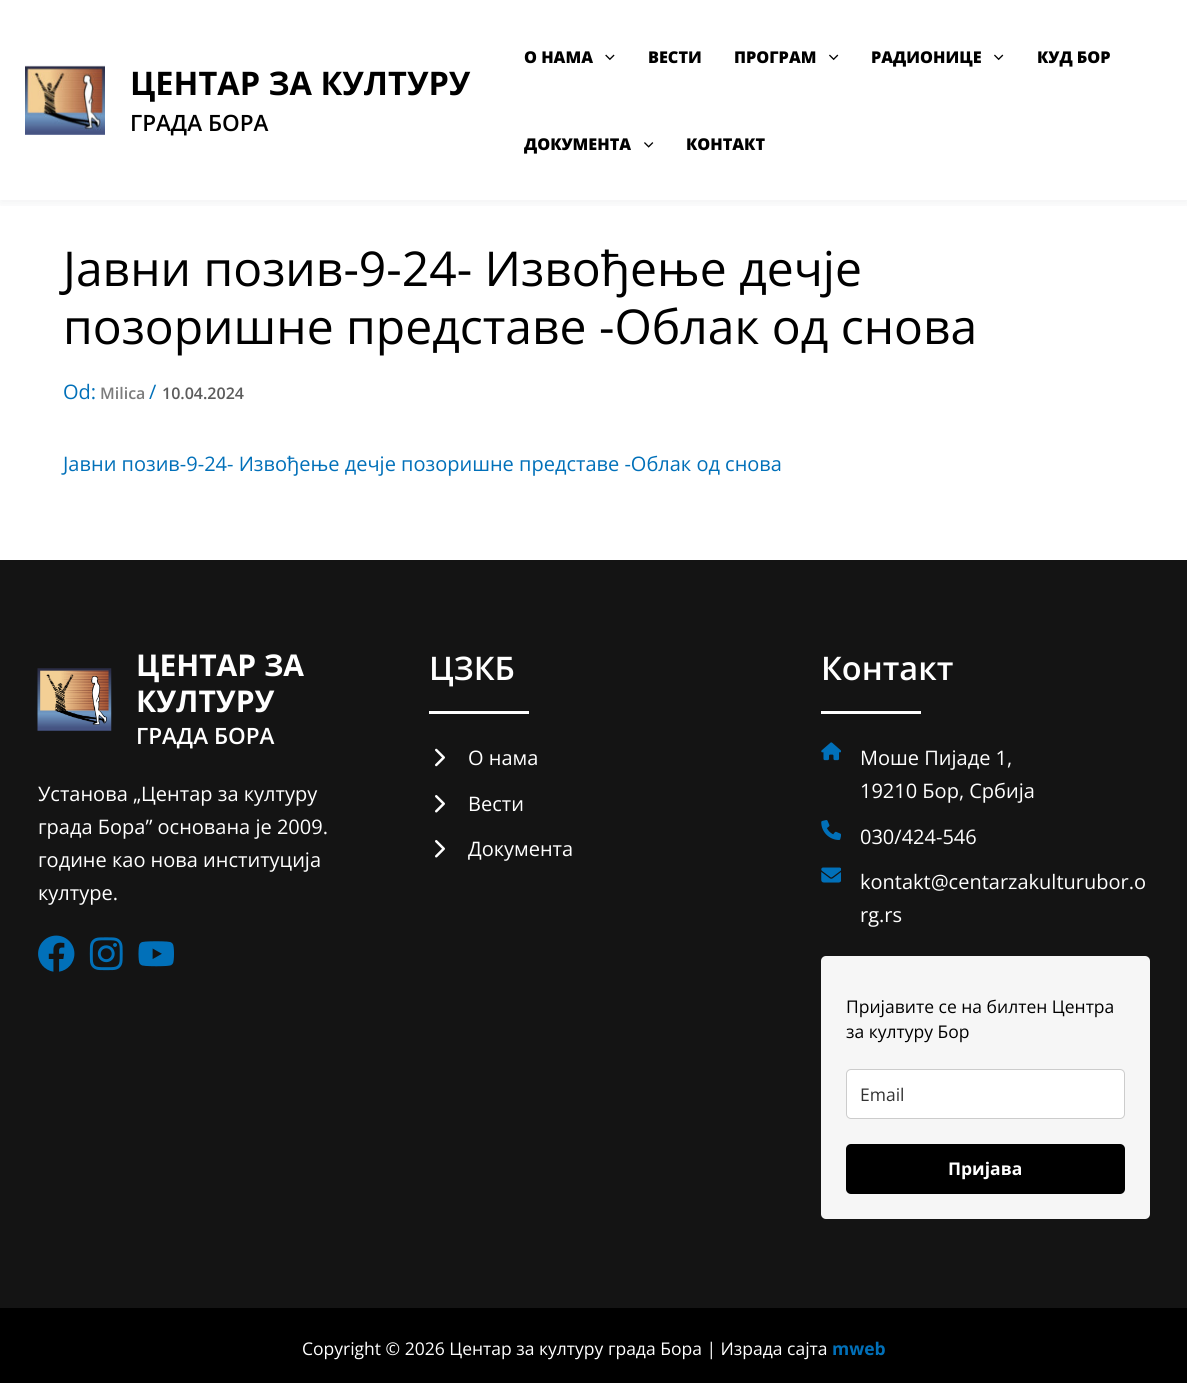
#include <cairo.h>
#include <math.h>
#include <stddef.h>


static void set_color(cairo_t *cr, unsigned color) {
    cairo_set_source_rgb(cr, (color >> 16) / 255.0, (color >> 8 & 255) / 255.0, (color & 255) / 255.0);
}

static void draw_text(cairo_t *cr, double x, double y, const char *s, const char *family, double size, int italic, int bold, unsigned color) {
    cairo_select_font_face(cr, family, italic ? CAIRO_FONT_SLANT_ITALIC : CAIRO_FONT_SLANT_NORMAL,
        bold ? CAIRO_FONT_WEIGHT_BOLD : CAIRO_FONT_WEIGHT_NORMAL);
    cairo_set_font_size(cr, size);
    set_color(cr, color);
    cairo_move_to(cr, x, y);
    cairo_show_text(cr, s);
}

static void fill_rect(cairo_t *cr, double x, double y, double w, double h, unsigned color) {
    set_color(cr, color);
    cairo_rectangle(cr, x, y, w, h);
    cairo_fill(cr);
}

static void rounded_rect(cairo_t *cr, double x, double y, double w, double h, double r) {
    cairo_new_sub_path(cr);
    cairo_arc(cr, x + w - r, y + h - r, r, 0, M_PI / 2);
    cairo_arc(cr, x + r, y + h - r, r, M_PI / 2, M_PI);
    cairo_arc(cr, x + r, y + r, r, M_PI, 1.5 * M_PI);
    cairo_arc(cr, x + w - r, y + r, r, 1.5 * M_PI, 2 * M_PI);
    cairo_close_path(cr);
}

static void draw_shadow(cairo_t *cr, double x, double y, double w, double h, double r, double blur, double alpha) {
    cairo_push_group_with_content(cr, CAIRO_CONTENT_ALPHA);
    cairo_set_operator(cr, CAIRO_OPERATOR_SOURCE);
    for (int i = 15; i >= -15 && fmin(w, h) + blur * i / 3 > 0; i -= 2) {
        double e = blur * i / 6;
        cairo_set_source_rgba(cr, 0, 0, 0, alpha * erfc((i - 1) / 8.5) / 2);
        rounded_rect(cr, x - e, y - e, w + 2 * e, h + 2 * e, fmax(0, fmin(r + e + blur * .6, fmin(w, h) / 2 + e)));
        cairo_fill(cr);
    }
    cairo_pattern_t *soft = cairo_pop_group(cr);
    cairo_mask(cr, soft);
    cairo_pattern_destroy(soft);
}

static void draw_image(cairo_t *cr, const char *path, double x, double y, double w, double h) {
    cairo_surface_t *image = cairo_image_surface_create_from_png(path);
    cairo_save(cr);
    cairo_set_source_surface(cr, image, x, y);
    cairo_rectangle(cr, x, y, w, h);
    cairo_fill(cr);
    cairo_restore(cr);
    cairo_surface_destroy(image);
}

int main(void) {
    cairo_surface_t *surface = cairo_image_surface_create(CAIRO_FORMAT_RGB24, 1187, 1383);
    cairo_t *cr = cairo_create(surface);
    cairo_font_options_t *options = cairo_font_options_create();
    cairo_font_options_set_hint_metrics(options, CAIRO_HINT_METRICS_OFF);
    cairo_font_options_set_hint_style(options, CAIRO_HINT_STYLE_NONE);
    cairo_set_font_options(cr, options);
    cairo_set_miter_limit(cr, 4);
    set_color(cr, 0xFFFFFF);
    cairo_paint(cr);
    cairo_save(cr);
    cairo_rectangle(cr, 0, 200, 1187, 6);
    cairo_clip(cr);
    set_color(cr, 0x243242);
    draw_shadow(cr, 0, 3, 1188, 200, 0, 6, 0.07);
    cairo_restore(cr);
    draw_image(cr, "assets/img1.png", 25, 65, 80, 70);
    draw_text(cr, 130, 95, "ЦЕНТАР ЗА КУЛТУРУ", "Open Sans", 32.5, 0, 1, 0x000000);
    draw_text(cr, 130, 131, "ГРАДА БОРА", "Open Sans SemiBold", 22.5, 0, 0, 0x000000);
    draw_text(cr, 524, 63, "О НАМА", "Open Sans ExtraBold", 16.25, 0, 0, 0x000000);
    draw_image(cr, "assets/img2.png", 605, 54, 10, 7);
    draw_text(cr, 648, 63, "ВЕСТИ", "Open Sans ExtraBold", 16.25, 0, 0, 0x000000);
    draw_text(cr, 734, 63, "ПРОГРАМ", "Open Sans ExtraBold", 16.25, 0, 0, 0x000000);
    draw_image(cr, "assets/img3.png", 829, 54, 10, 7);
    draw_text(cr, 871, 63, "РАДИОНИЦЕ", "Open Sans ExtraBold", 16.25, 0, 0, 0x000000);
    draw_image(cr, "assets/img3.png", 994, 54, 10, 7);
    draw_text(cr, 1037, 63, "КУД БОР", "Open Sans ExtraBold", 16.25, 0, 0, 0x000000);
    draw_text(cr, 524, 150, "ДОКУМЕНТА", "Open Sans ExtraBold", 16.25, 0, 0, 0x000000);
    draw_image(cr, "assets/img4.png", 644, 142, 10, 6);
    draw_text(cr, 686, 150, "КОНТАКТ", "Open Sans ExtraBold", 16.25, 0, 0, 0x000000);
    draw_text(cr, 63, 286, "Јавни позив-9-24- Извођење дечје", "Open Sans", 48, 0, 0, 0x000000);
    draw_text(cr, 63, 344, "позоришне представе -Облак од снова", "Open Sans", 48, 0, 0, 0x000000);
    draw_text(cr, 63, 399, "Od:", "Open Sans", 20, 0, 0, 0x0170B9);
    draw_text(cr, 100, 399, "Milica", "Open Sans SemiBold", 16, 0, 0, 0x7C7C7C);
    draw_text(cr, 149, 399, "/", "Open Sans", 20, 0, 0, 0x0170B9);
    draw_text(cr, 162, 399, "10.04.2024", "Open Sans SemiBold", 16, 0, 0, 0x5C5C5C);
    draw_text(cr, 63, 471, "Јавни позив-9-24- Извођење дечје позоришне представе -Облак од снова", "Open Sans", 20, 0, 0, 0x0170B9);
    fill_rect(cr, 0, 560, 1187, 748, 0x141414);
    draw_image(cr, "assets/img5.png", 37, 668, 75, 63);
    draw_text(cr, 136, 676, "ЦЕНТАР ЗА", "Open Sans", 30, 0, 1, 0xFFFFFF);
    draw_text(cr, 136, 712, "КУЛТУРУ", "Open Sans", 30, 0, 1, 0xFFFFFF);
    draw_text(cr, 136, 744, "ГРАДА БОРА", "Open Sans SemiBold", 22.5, 0, 0, 0xFFFFFF);
    draw_text(cr, 38, 801, "Установа „Центар за културу", "Open Sans", 20, 0, 0, 0xFFFFFF);
    draw_text(cr, 38, 834, "града Бора” основана је 2009.", "Open Sans", 20, 0, 0, 0xFFFFFF);
    draw_text(cr, 38, 867, "године као нова институција", "Open Sans", 20, 0, 0, 0xFFFFFF);
    draw_text(cr, 38, 900, "културе.", "Open Sans", 20, 0, 0, 0xFFFFFF);
    draw_image(cr, "assets/img6.png", 38, 935, 37, 37);
    draw_image(cr, "assets/img7.png", 89, 937, 34, 34);
    draw_image(cr, "assets/img8.png", 138, 941, 36, 26);
    draw_text(cr, 429, 680, "ЦЗКБ", "Open Sans SemiBold", 32.5, 0, 0, 0xFFFFFF);
    fill_rect(cr, 429, 711, 100, 3, 0xFFFFFF);
    draw_image(cr, "assets/img9.png", 435, 748, 10, 19);
    draw_text(cr, 468, 765, "О нама", "Open Sans", 20, 0, 0, 0xFFFFFF);
    draw_image(cr, "assets/img10.png", 435, 795, 10, 18);
    draw_text(cr, 468, 811, "Вести", "Open Sans", 20, 0, 0, 0xFFFFFF);
    draw_image(cr, "assets/img10.png", 435, 840, 10, 18);
    draw_text(cr, 468, 856, "Документа", "Open Sans", 20, 0, 0, 0xFFFFFF);
    draw_text(cr, 821, 680, "Контакт", "Open Sans SemiBold", 32.5, 0, 0, 0xFFFFFF);
    fill_rect(cr, 821, 711, 100, 3, 0xFFFFFF);
    draw_image(cr, "assets/img11.png", 821, 742, 20, 19);
    draw_text(cr, 860, 765, "Моше Пијаде 1,", "Open Sans", 20, 0, 0, 0xFFFFFF);
    draw_text(cr, 860, 798, "19210 Бор, Србија", "Open Sans", 20, 0, 0, 0xFFFFFF);
    draw_image(cr, "assets/img12.png", 821, 820, 20, 20);
    draw_text(cr, 860, 844, "030/424-546", "Open Sans", 20, 0, 0, 0xFFFFFF);
    draw_image(cr, "assets/img13.png", 821, 867, 20, 16);
    draw_text(cr, 860, 889, "kontakt@centarzakulturubor.o", "Open Sans", 20, 0, 0, 0xFFFFFF);
    draw_text(cr, 860, 922, "rg.rs", "Open Sans", 20, 0, 0, 0xFFFFFF);
    set_color(cr, 0xF6F6F6);
    rounded_rect(cr, 821, 956, 329, 263, 5);
    cairo_fill(cr);
    draw_text(cr, 846, 1013, "Пријавите се на билтен Центра", "Open Sans", 17.5, 0, 0, 0x000000);
    draw_text(cr, 846, 1038, "за културу Бор", "Open Sans", 17.5, 0, 0, 0x000000);
    set_color(cr, 0xFFFFFF);
    rounded_rect(cr, 846.5, 1069.5, 278, 49, 4.5);
    cairo_fill_preserve(cr);
    set_color(cr, 0xCCCCCC);
    cairo_set_line_width(cr, 1);
    cairo_stroke(cr);
    draw_text(cr, 860, 1101, "Email", "Open Sans", 17.5, 0, 0, 0x333333);
    set_color(cr, 0x000000);
    rounded_rect(cr, 846, 1144, 279, 50, 5);
    cairo_fill(cr);
    draw_text(cr, 948, 1175, "Пријава", "Open Sans", 17.5, 0, 1, 0xFFFFFF);
    fill_rect(cr, 0, 1308, 1187, 75, 0x000000);
    draw_text(cr, 302, 1355, "Copyright © 2026 Центар за културу града Бора | Израда сајта", "Open Sans", 17.5, 0, 0, 0xFFFFFF);
    draw_text(cr, 832, 1355, "mweb", "Open Sans", 17.5, 0, 1, 0x0170B9);
    cairo_surface_write_to_png(surface, "output.png");
    cairo_font_options_destroy(options);
    cairo_destroy(cr);
    cairo_surface_destroy(surface);
    return 0;
}
